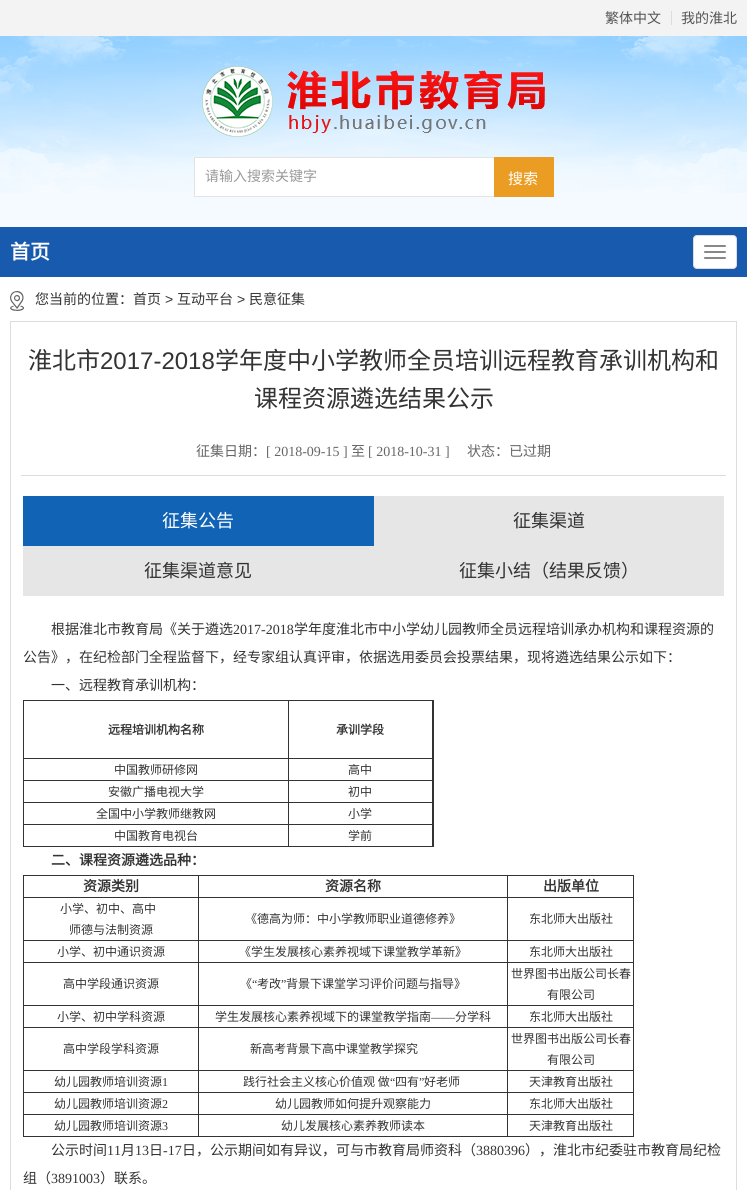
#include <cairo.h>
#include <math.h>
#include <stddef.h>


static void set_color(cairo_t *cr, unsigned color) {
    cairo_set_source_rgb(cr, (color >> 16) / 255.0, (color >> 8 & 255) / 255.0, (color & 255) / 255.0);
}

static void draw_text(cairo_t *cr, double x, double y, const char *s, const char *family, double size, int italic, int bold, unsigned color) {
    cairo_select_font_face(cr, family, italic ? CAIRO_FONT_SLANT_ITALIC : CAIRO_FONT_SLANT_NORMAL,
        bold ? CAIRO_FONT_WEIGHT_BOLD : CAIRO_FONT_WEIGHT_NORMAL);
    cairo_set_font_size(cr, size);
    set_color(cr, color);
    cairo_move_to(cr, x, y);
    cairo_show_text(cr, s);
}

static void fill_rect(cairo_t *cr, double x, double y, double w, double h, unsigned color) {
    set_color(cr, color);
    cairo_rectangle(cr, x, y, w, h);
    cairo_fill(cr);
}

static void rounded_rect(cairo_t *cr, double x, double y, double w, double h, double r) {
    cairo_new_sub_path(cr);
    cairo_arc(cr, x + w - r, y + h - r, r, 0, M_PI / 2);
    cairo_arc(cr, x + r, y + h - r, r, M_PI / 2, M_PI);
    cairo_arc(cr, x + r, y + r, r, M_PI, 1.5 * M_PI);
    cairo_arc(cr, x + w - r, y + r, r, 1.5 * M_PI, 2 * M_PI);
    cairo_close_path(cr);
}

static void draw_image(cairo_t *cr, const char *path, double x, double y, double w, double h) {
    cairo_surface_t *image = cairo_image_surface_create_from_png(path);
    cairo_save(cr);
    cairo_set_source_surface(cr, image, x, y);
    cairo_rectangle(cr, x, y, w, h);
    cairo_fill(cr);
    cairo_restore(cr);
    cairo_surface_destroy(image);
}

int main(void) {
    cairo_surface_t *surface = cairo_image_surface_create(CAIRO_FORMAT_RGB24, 747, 1190);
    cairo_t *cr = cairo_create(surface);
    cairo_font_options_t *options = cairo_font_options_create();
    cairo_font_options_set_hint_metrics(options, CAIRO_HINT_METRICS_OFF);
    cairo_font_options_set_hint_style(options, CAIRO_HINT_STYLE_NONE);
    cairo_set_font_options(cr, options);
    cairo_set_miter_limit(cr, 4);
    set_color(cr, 0xFFFFFF);
    cairo_paint(cr);
    fill_rect(cr, 0, 0, 747, 36, 0xF3F3F3);
    draw_text(cr, 605, 23, "繁体中文", "Noto Sans CJK SC", 14, 0, 0, 0x545454);
    fill_rect(cr, 671, 11, 1, 14, 0xDCDCDC);
    draw_text(cr, 681, 23, "我的淮北", "Noto Sans CJK SC", 14, 0, 0, 0x545454);
    fill_rect(cr, 0, 193, 747, 34, 0xF4FAFF);
    draw_image(cr, "assets/img1.png", 0, 36, 747, 157);
    draw_image(cr, "assets/img2.png", 202, 66, 71, 71);
    draw_image(cr, "assets/img3.png", 287, 70, 258, 63);
    fill_rect(cr, 195, 158, 299, 38, 0xFFFFFF);
    cairo_rectangle(cr, 194.5, 157.5, 359, 39);
    set_color(cr, 0xE3E3E3);
    cairo_set_line_width(cr, 1);
    cairo_stroke(cr);
    draw_text(cr, 205, 181, "请输入搜索关键字", "Noto Sans CJK SC", 14, 0, 0, 0x999999);
    fill_rect(cr, 494, 157, 60, 40, 0xEB9D23);
    draw_text(cr, 508, 184, "搜索", "Noto Sans CJK SC", 15, 0, 0, 0xFFFFFF);
    fill_rect(cr, 0, 227, 747, 50, 0x185AAE);
    draw_text(cr, 10, 259, "首页", "Noto Sans CJK SC", 20, 0, 1, 0xFFFFFF);
    rounded_rect(cr, 693.5, 235.5, 43, 33, 3.5);
    cairo_fill_preserve(cr);
    set_color(cr, 0xDDDDDD);
    cairo_stroke(cr);
    set_color(cr, 0x888888);
    rounded_rect(cr, 704, 245, 22, 2, 1);
    cairo_fill(cr);
    rounded_rect(cr, 704, 251, 22, 2, 1);
    cairo_fill(cr);
    rounded_rect(cr, 704, 257, 22, 2, 1);
    cairo_fill(cr);
    draw_image(cr, "assets/img4.png", 10, 291, 14, 20);
    draw_text(cr, 35, 304, "您当前的位置：首页", "Noto Sans CJK SC", 14, 0, 0, 0x333333);
    draw_text(cr, 165, 304, ">", "Liberation Sans", 14, 0, 0, 0x333333);
    draw_text(cr, 177, 304, "互动平台", "Noto Sans CJK SC", 14, 0, 0, 0x333333);
    draw_text(cr, 237, 304, ">", "Liberation Sans", 14, 0, 0, 0x333333);
    draw_text(cr, 249, 304, "民意征集", "Noto Sans CJK SC", 14, 0, 0, 0x333333);
    cairo_rectangle(cr, 10.5, 321.5, 726, 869);
    set_color(cr, 0xDDDDDD);
    cairo_stroke(cr);
    draw_text(cr, 28, 369, "淮北市", "Noto Sans CJK SC", 24, 0, 0, 0x333333);
    draw_text(cr, 100, 369, "2017-2018", "Liberation Sans", 24, 0, 0, 0x333333);
    draw_text(cr, 215, 369, "学年度中小学教师全员培训远程教育承训机构和", "Noto Sans CJK SC", 24, 0, 0, 0x333333);
    draw_text(cr, 254, 407, "课程资源遴选结果公示", "Noto Sans CJK SC", 24, 0, 0, 0x333333);
    fill_rect(cr, 21, 475, 705, 1, 0xDDDDDD);
    draw_text(cr, 196, 456, "征集日期：", "Noto Sans CJK SC", 14, 0, 0, 0x666666);
    draw_text(cr, 266, 456, "[ 2018-09-15 ]", "Liberation Serif", 14, 0, 0, 0x666666);
    draw_text(cr, 351, 456, "至", "Noto Sans CJK SC", 14, 0, 0, 0x666666);
    draw_text(cr, 368, 456, "[ 2018-10-31 ]", "Liberation Serif", 14, 0, 0, 0x666666);
    draw_text(cr, 467, 456, "状态：已过期", "Noto Sans CJK SC", 14, 0, 0, 0x666666);
    fill_rect(cr, 23, 496, 701, 100, 0xE6E6E6);
    fill_rect(cr, 23, 496, 351, 50, 0x1163B5);
    draw_text(cr, 162, 527, "征集公告", "Noto Sans CJK SC", 18, 0, 0, 0xFFFFFF);
    draw_text(cr, 513, 527, "征集渠道", "Noto Sans CJK SC", 18, 0, 0, 0x333333);
    draw_text(cr, 144, 577, "征集渠道意见", "Noto Sans CJK SC", 18, 0, 0, 0x333333);
    draw_text(cr, 459, 577, "征集小结（结果反馈）", "Noto Sans CJK SC", 18, 0, 0, 0x333333);
    draw_text(cr, 51, 634, "根据淮北市教育局《关于遴选", "Noto Sans CJK SC", 14, 0, 0, 0x333333);
    draw_text(cr, 233, 634, "2017-2018", "Liberation Serif", 14, 0, 0, 0x333333);
    draw_text(cr, 294, 634, "学年度淮北市中小学幼儿园教师全员远程培训承办机构和课程资源的", "Noto Sans CJK SC", 14, 0, 0, 0x333333);
    draw_text(cr, 23, 662, "公告》，在纪检部门全程监督下，经专家组认真评审，依据选用委员会投票结果，现将遴选结果公示如下：", "Noto Sans CJK SC", 14, 0, 0, 0x333333);
    draw_text(cr, 51, 690, "一、远程教育承训机构：", "Noto Sans CJK SC", 14, 0, 0, 0x333333);
    fill_rect(cr, 433, 700, 1, 147, 0x333333);
    fill_rect(cr, 432, 846, 2, 1, 0x333333);
    fill_rect(cr, 432, 824, 1, 23, 0x333333);
    fill_rect(cr, 288, 824, 145, 1, 0x333333);
    fill_rect(cr, 432, 802, 1, 23, 0x333333);
    fill_rect(cr, 288, 802, 145, 1, 0x333333);
    fill_rect(cr, 432, 780, 1, 23, 0x333333);
    fill_rect(cr, 288, 780, 145, 1, 0x333333);
    fill_rect(cr, 432, 758, 1, 23, 0x333333);
    fill_rect(cr, 288, 758, 145, 1, 0x333333);
    fill_rect(cr, 432, 700, 1, 59, 0x333333);
    fill_rect(cr, 288, 700, 145, 1, 0x333333);
    fill_rect(cr, 288, 846, 145, 1, 0x333333);
    fill_rect(cr, 288, 824, 1, 23, 0x333333);
    fill_rect(cr, 23, 824, 266, 1, 0x333333);
    fill_rect(cr, 288, 802, 1, 23, 0x333333);
    fill_rect(cr, 23, 802, 266, 1, 0x333333);
    fill_rect(cr, 288, 780, 1, 23, 0x333333);
    fill_rect(cr, 23, 780, 266, 1, 0x333333);
    fill_rect(cr, 288, 758, 1, 23, 0x333333);
    fill_rect(cr, 23, 758, 266, 1, 0x333333);
    fill_rect(cr, 288, 700, 1, 59, 0x333333);
    fill_rect(cr, 23, 700, 266, 1, 0x333333);
    fill_rect(cr, 23, 846, 266, 1, 0x333333);
    fill_rect(cr, 23, 824, 1, 23, 0x333333);
    fill_rect(cr, 23, 802, 1, 23, 0x333333);
    fill_rect(cr, 23, 780, 1, 23, 0x333333);
    fill_rect(cr, 23, 758, 1, 23, 0x333333);
    fill_rect(cr, 23, 700, 1, 59, 0x333333);
    draw_text(cr, 108, 734, "远程培训机构名称", "Noto Sans CJK SC", 12, 0, 1, 0x333333);
    draw_text(cr, 336, 734, "承训学段", "Noto Sans CJK SC", 12, 0, 1, 0x333333);
    draw_text(cr, 114, 774, "中国教师研修网", "Noto Sans CJK SC", 12, 0, 0, 0x333333);
    draw_text(cr, 348, 774, "高中", "Noto Sans CJK SC", 12, 0, 0, 0x333333);
    draw_text(cr, 108, 796, "安徽广播电视大学", "Noto Sans CJK SC", 12, 0, 0, 0x333333);
    draw_text(cr, 348, 796, "初中", "Noto Sans CJK SC", 12, 0, 0, 0x333333);
    draw_text(cr, 96, 818, "全国中小学教师继教网", "Noto Sans CJK SC", 12, 0, 0, 0x333333);
    draw_text(cr, 348, 818, "小学", "Noto Sans CJK SC", 12, 0, 0, 0x333333);
    draw_text(cr, 114, 840, "中国教育电视台", "Noto Sans CJK SC", 12, 0, 0, 0x333333);
    draw_text(cr, 348, 840, "学前", "Noto Sans CJK SC", 12, 0, 0, 0x333333);
    draw_text(cr, 51, 865, "二、课程资源遴选品种：", "Noto Sans CJK SC", 14, 0, 1, 0x333333);
    fill_rect(cr, 507, 875, 127, 1, 0x333333);
    fill_rect(cr, 507, 897, 127, 1, 0x333333);
    fill_rect(cr, 507, 940, 127, 1, 0x333333);
    fill_rect(cr, 507, 962, 127, 1, 0x333333);
    fill_rect(cr, 507, 1005, 127, 1, 0x333333);
    fill_rect(cr, 507, 1027, 127, 1, 0x333333);
    fill_rect(cr, 507, 1070, 127, 1, 0x333333);
    fill_rect(cr, 507, 1092, 127, 1, 0x333333);
    fill_rect(cr, 507, 1114, 127, 1, 0x333333);
    fill_rect(cr, 633, 1114, 1, 23, 0x333333);
    fill_rect(cr, 507, 1136, 127, 1, 0x333333);
    fill_rect(cr, 507, 1114, 1, 23, 0x333333);
    fill_rect(cr, 198, 1114, 310, 1, 0x333333);
    fill_rect(cr, 507, 1092, 1, 23, 0x333333);
    fill_rect(cr, 198, 1092, 310, 1, 0x333333);
    fill_rect(cr, 507, 1070, 1, 23, 0x333333);
    fill_rect(cr, 198, 1070, 310, 1, 0x333333);
    fill_rect(cr, 507, 1027, 1, 44, 0x333333);
    fill_rect(cr, 198, 1027, 310, 1, 0x333333);
    fill_rect(cr, 507, 1005, 1, 23, 0x333333);
    fill_rect(cr, 198, 1005, 310, 1, 0x333333);
    fill_rect(cr, 507, 962, 1, 44, 0x333333);
    fill_rect(cr, 198, 962, 310, 1, 0x333333);
    fill_rect(cr, 507, 940, 1, 23, 0x333333);
    fill_rect(cr, 198, 940, 310, 1, 0x333333);
    fill_rect(cr, 507, 897, 1, 44, 0x333333);
    fill_rect(cr, 198, 897, 310, 1, 0x333333);
    fill_rect(cr, 507, 875, 1, 23, 0x333333);
    fill_rect(cr, 198, 875, 310, 1, 0x333333);
    fill_rect(cr, 198, 1136, 310, 1, 0x333333);
    fill_rect(cr, 198, 1114, 1, 23, 0x333333);
    fill_rect(cr, 23, 1114, 176, 1, 0x333333);
    fill_rect(cr, 198, 1092, 1, 23, 0x333333);
    fill_rect(cr, 23, 1092, 176, 1, 0x333333);
    fill_rect(cr, 198, 1070, 1, 23, 0x333333);
    fill_rect(cr, 23, 1070, 176, 1, 0x333333);
    fill_rect(cr, 198, 1027, 1, 44, 0x333333);
    fill_rect(cr, 23, 1027, 176, 1, 0x333333);
    fill_rect(cr, 198, 1005, 1, 23, 0x333333);
    fill_rect(cr, 23, 1005, 176, 1, 0x333333);
    fill_rect(cr, 198, 962, 1, 44, 0x333333);
    fill_rect(cr, 23, 962, 176, 1, 0x333333);
    fill_rect(cr, 198, 940, 1, 23, 0x333333);
    fill_rect(cr, 23, 940, 176, 1, 0x333333);
    fill_rect(cr, 198, 897, 1, 44, 0x333333);
    fill_rect(cr, 23, 897, 176, 1, 0x333333);
    fill_rect(cr, 198, 875, 1, 23, 0x333333);
    fill_rect(cr, 23, 875, 176, 1, 0x333333);
    fill_rect(cr, 23, 1136, 176, 1, 0x333333);
    fill_rect(cr, 23, 1114, 1, 23, 0x333333);
    fill_rect(cr, 23, 1092, 1, 23, 0x333333);
    fill_rect(cr, 23, 1070, 1, 23, 0x333333);
    fill_rect(cr, 23, 1027, 1, 44, 0x333333);
    fill_rect(cr, 23, 1005, 1, 23, 0x333333);
    fill_rect(cr, 23, 962, 1, 44, 0x333333);
    fill_rect(cr, 23, 940, 1, 23, 0x333333);
    fill_rect(cr, 23, 897, 1, 44, 0x333333);
    fill_rect(cr, 23, 875, 1, 23, 0x333333);
    draw_text(cr, 83, 891, "资源类别", "Noto Sans CJK SC", 14, 0, 1, 0x333333);
    draw_text(cr, 325, 891, "资源名称", "Noto Sans CJK SC", 14, 0, 1, 0x333333);
    fill_rect(cr, 633, 1092, 1, 23, 0x333333);
    fill_rect(cr, 633, 1070, 1, 23, 0x333333);
    fill_rect(cr, 633, 1027, 1, 44, 0x333333);
    fill_rect(cr, 633, 1005, 1, 23, 0x333333);
    fill_rect(cr, 633, 962, 1, 44, 0x333333);
    fill_rect(cr, 633, 940, 1, 23, 0x333333);
    fill_rect(cr, 633, 897, 1, 44, 0x333333);
    fill_rect(cr, 633, 875, 1, 23, 0x333333);
    draw_text(cr, 543, 891, "出版单位", "Noto Sans CJK SC", 14, 0, 1, 0x333333);
    draw_text(cr, 60, 913, "小学、初中、高中", "Noto Sans CJK SC", 12, 0, 0, 0x333333);
    draw_text(cr, 69, 934, "师德与法制资源", "Noto Sans CJK SC", 12, 0, 0, 0x333333);
    draw_text(cr, 245, 923, "《德高为师：中小学教师职业道德修养》", "Noto Sans CJK SC", 12, 0, 0, 0x333333);
    draw_text(cr, 529, 923, "东北师大出版社", "Noto Sans CJK SC", 12, 0, 0, 0x333333);
    draw_text(cr, 57, 956, "小学、初中通识资源", "Noto Sans CJK SC", 12, 0, 0, 0x333333);
    draw_text(cr, 239, 956, "《学生发展核心素养视域下课堂教学革新》", "Noto Sans CJK SC", 12, 0, 0, 0x333333);
    draw_text(cr, 529, 956, "东北师大出版社", "Noto Sans CJK SC", 12, 0, 0, 0x333333);
    draw_text(cr, 63, 988, "高中学段通识资源", "Noto Sans CJK SC", 12, 0, 0, 0x333333);
    draw_text(cr, 240, 988, "《", "Noto Sans CJK SC", 12, 0, 0, 0x333333);
    draw_text(cr, 252, 988, "“", "Liberation Serif", 12, 0, 0, 0x333333);
    draw_text(cr, 257, 988, "考改", "Noto Sans CJK SC", 12, 0, 0, 0x333333);
    draw_text(cr, 281, 988, "”", "Liberation Serif", 12, 0, 0, 0x333333);
    draw_text(cr, 286, 988, "背景下课堂学习评价问题与指导》", "Noto Sans CJK SC", 12, 0, 0, 0x333333);
    draw_text(cr, 511, 978, "世界图书出版公司长春", "Noto Sans CJK SC", 12, 0, 0, 0x333333);
    draw_text(cr, 547, 999, "有限公司", "Noto Sans CJK SC", 12, 0, 0, 0x333333);
    draw_text(cr, 57, 1021, "小学、初中学科资源", "Noto Sans CJK SC", 12, 0, 0, 0x333333);
    draw_text(cr, 215, 1021, "学生发展核心素养视域下的课堂教学指南", "Noto Sans CJK SC", 12, 0, 0, 0x333333);
    draw_text(cr, 431, 1021, "——", "Liberation Serif", 12, 0, 0, 0x333333);
    draw_text(cr, 455, 1021, "分学科", "Noto Sans CJK SC", 12, 0, 0, 0x333333);
    draw_text(cr, 529, 1021, "东北师大出版社", "Noto Sans CJK SC", 12, 0, 0, 0x333333);
    draw_text(cr, 63, 1053, "高中学段学科资源", "Noto Sans CJK SC", 12, 0, 0, 0x333333);
    draw_text(cr, 250, 1053, "新高考背景下高中课堂教学探究", "Noto Sans CJK SC", 12, 0, 0, 0x333333);
    draw_text(cr, 511, 1043, "世界图书出版公司长春", "Noto Sans CJK SC", 12, 0, 0, 0x333333);
    draw_text(cr, 547, 1064, "有限公司", "Noto Sans CJK SC", 12, 0, 0, 0x333333);
    draw_text(cr, 54, 1086, "幼儿园教师培训资源", "Noto Sans CJK SC", 12, 0, 0, 0x333333);
    draw_text(cr, 162, 1086, "1", "Liberation Serif", 12, 0, 0, 0x333333);
    draw_text(cr, 243, 1086, "践行社会主义核心价值观 做", "Noto Sans CJK SC", 12, 0, 0, 0x333333);
    draw_text(cr, 390, 1086, "“", "Liberation Serif", 12, 0, 0, 0x333333);
    draw_text(cr, 395, 1086, "四有", "Noto Sans CJK SC", 12, 0, 0, 0x333333);
    draw_text(cr, 419, 1086, "”", "Liberation Serif", 12, 0, 0, 0x333333);
    draw_text(cr, 424, 1086, "好老师", "Noto Sans CJK SC", 12, 0, 0, 0x333333);
    draw_text(cr, 529, 1086, "天津教育出版社", "Noto Sans CJK SC", 12, 0, 0, 0x333333);
    draw_text(cr, 54, 1108, "幼儿园教师培训资源", "Noto Sans CJK SC", 12, 0, 0, 0x333333);
    draw_text(cr, 162, 1108, "2", "Liberation Serif", 12, 0, 0, 0x333333);
    draw_text(cr, 275, 1108, "幼儿园教师如何提升观察能力", "Noto Sans CJK SC", 12, 0, 0, 0x333333);
    draw_text(cr, 529, 1108, "东北师大出版社", "Noto Sans CJK SC", 12, 0, 0, 0x333333);
    draw_text(cr, 54, 1130, "幼儿园教师培训资源", "Noto Sans CJK SC", 12, 0, 0, 0x333333);
    draw_text(cr, 162, 1130, "3", "Liberation Serif", 12, 0, 0, 0x333333);
    draw_text(cr, 281, 1130, "幼儿发展核心素养教师读本", "Noto Sans CJK SC", 12, 0, 0, 0x333333);
    draw_text(cr, 529, 1130, "天津教育出版社", "Noto Sans CJK SC", 12, 0, 0, 0x333333);
    draw_text(cr, 51, 1155, "公示时间", "Noto Sans CJK SC", 14, 0, 0, 0x333333);
    draw_text(cr, 107, 1155, "11", "Liberation Serif", 14, 0, 0, 0x333333);
    draw_text(cr, 121, 1155, "月", "Noto Sans CJK SC", 14, 0, 0, 0x333333);
    draw_text(cr, 135, 1155, "13", "Liberation Serif", 14, 0, 0, 0x333333);
    draw_text(cr, 149, 1155, "日", "Noto Sans CJK SC", 14, 0, 0, 0x333333);
    draw_text(cr, 163, 1155, "-17", "Liberation Serif", 14, 0, 0, 0x333333);
    draw_text(cr, 182, 1155, "日，公示期间如有异议，可与市教育局师资科（", "Noto Sans CJK SC", 14, 0, 0, 0x333333);
    draw_text(cr, 476, 1155, "3880396", "Liberation Serif", 14, 0, 0, 0x333333);
    draw_text(cr, 525, 1155, "），淮北市纪委驻市教育局纪检", "Noto Sans CJK SC", 14, 0, 0, 0x333333);
    draw_text(cr, 23, 1183, "组（", "Noto Sans CJK SC", 14, 0, 0, 0x333333);
    draw_text(cr, 51, 1183, "3891003", "Liberation Serif", 14, 0, 0, 0x333333);
    draw_text(cr, 100, 1183, "）联系。", "Noto Sans CJK SC", 14, 0, 0, 0x333333);
    cairo_surface_write_to_png(surface, "output.png");
    cairo_font_options_destroy(options);
    cairo_destroy(cr);
    cairo_surface_destroy(surface);
    return 0;
}
